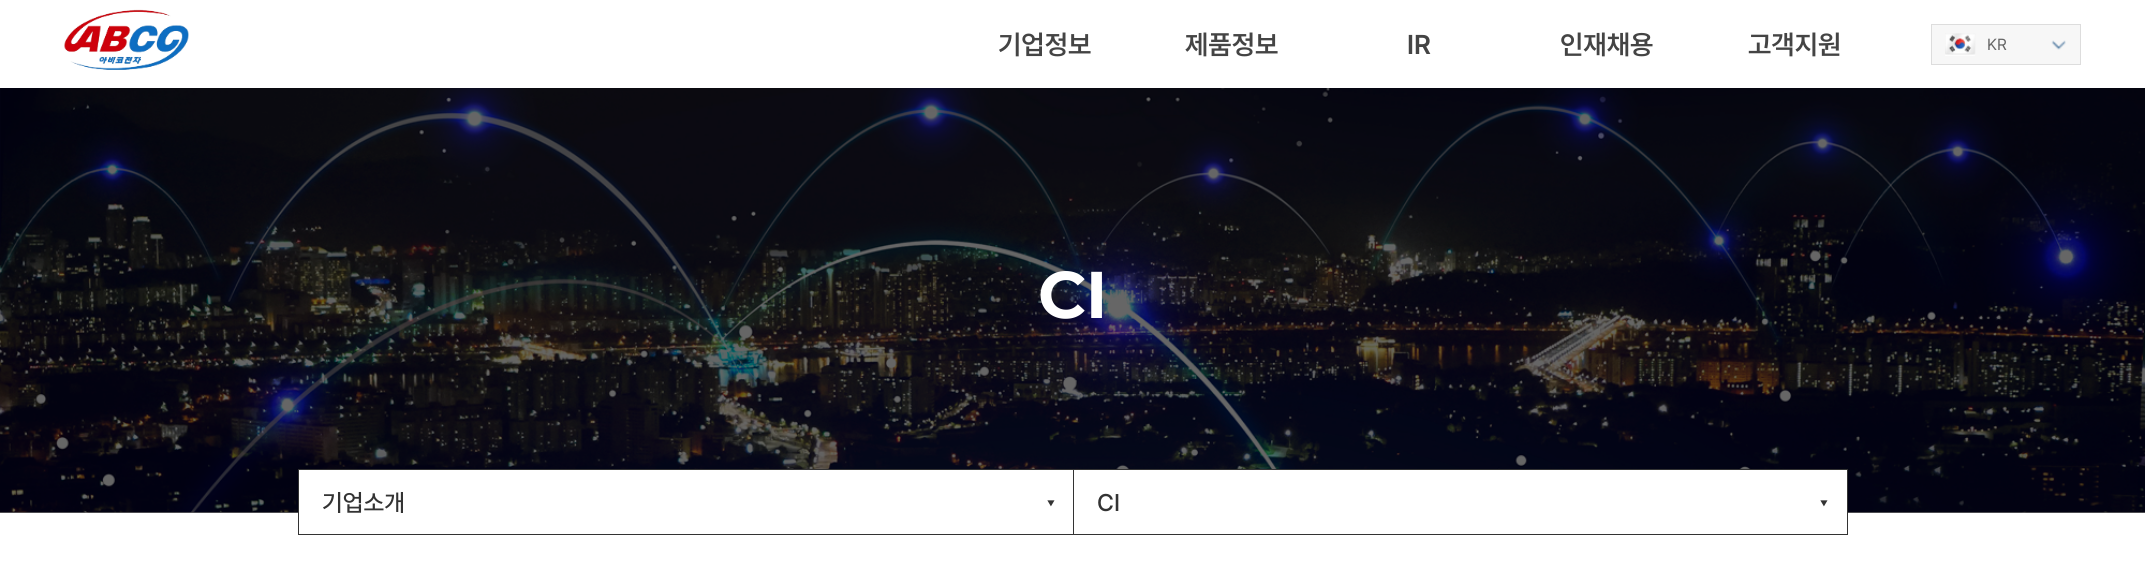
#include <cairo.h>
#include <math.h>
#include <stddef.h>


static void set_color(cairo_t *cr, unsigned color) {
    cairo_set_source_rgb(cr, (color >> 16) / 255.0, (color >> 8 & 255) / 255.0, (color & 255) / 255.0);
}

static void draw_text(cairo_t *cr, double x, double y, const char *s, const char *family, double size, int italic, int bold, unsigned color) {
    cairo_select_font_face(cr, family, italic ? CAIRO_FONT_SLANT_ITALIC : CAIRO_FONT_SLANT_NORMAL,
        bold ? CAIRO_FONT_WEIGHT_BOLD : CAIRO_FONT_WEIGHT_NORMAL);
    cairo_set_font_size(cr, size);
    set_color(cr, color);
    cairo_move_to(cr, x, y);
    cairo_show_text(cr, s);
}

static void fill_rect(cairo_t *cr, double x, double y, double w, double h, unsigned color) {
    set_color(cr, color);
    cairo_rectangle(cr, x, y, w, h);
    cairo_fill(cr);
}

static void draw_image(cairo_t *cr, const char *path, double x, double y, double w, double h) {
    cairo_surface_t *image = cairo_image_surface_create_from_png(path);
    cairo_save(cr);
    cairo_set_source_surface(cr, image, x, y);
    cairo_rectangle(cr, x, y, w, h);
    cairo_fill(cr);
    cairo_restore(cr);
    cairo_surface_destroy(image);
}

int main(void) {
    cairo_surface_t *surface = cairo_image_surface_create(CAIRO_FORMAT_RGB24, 2145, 587);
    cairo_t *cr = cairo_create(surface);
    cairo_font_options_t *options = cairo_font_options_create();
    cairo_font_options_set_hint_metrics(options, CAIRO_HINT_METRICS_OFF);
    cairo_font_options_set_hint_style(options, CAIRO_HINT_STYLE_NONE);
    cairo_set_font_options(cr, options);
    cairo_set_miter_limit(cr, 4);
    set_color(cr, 0xFFFFFF);
    cairo_paint(cr);
    fill_rect(cr, 0, 512, 2145, 1, 0x666666);
    draw_image(cr, "assets/img1.png", 64, 9, 125, 61);
    draw_text(cr, 998, 54, "기업정보", "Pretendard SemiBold", 27, 0, 0, 0x444444);
    draw_text(cr, 1185, 54, "제품정보", "Pretendard SemiBold", 27, 0, 0, 0x444444);
    draw_text(cr, 1407, 54, "IR", "Pretendard SemiBold", 27, 0, 0, 0x444444);
    draw_text(cr, 1560, 54, "인재채용", "Pretendard SemiBold", 27, 0, 0, 0x444444);
    draw_text(cr, 1748, 54, "고객지원", "Pretendard SemiBold", 27, 0, 0, 0x444444);
    set_color(cr, 0xF7F7F7);
    cairo_rectangle(cr, 1931.5, 24.5, 149, 40);
    cairo_fill_preserve(cr);
    set_color(cr, 0xDDDDDD);
    cairo_set_line_width(cr, 1);
    cairo_stroke(cr);
    draw_image(cr, "assets/img2.png", 1945, 33, 31, 23);
    draw_text(cr, 1987, 50, "KR", "Pretendard", 16, 0, 0, 0x666666);
    draw_image(cr, "assets/img3.png", 2051, 40, 15, 10);
    draw_image(cr, "assets/img4.png", 0, 88, 2145, 425);
    draw_text(cr, 1038, 318, "CI", "Montserrat", 66, 0, 1, 0xFFFFFF);
    fill_rect(cr, 299, 470, 1548, 43, 0xFFFFFF);
    fill_rect(cr, 298, 469, 775, 1, 0x333333);
    fill_rect(cr, 298, 534, 775, 1, 0x333333);
    fill_rect(cr, 298, 469, 1, 66, 0x333333);
    draw_text(cr, 322, 511, "기업소개", "Pretendard Medium", 24, 0, 0, 0x333333);
    draw_text(cr, 1047, 506, "▼", "Pretendard Medium", 8, 0, 0, 0x333333);
    cairo_rectangle(cr, 1073.5, 469.5, 774, 65);
    cairo_stroke(cr);
    draw_text(cr, 1097, 511, "CI", "Pretendard Medium", 24, 0, 0, 0x333333);
    draw_text(cr, 1820, 506, "▼", "Pretendard Medium", 8, 0, 0, 0x333333);
    cairo_surface_write_to_png(surface, "output.png");
    cairo_font_options_destroy(options);
    cairo_destroy(cr);
    cairo_surface_destroy(surface);
    return 0;
}
